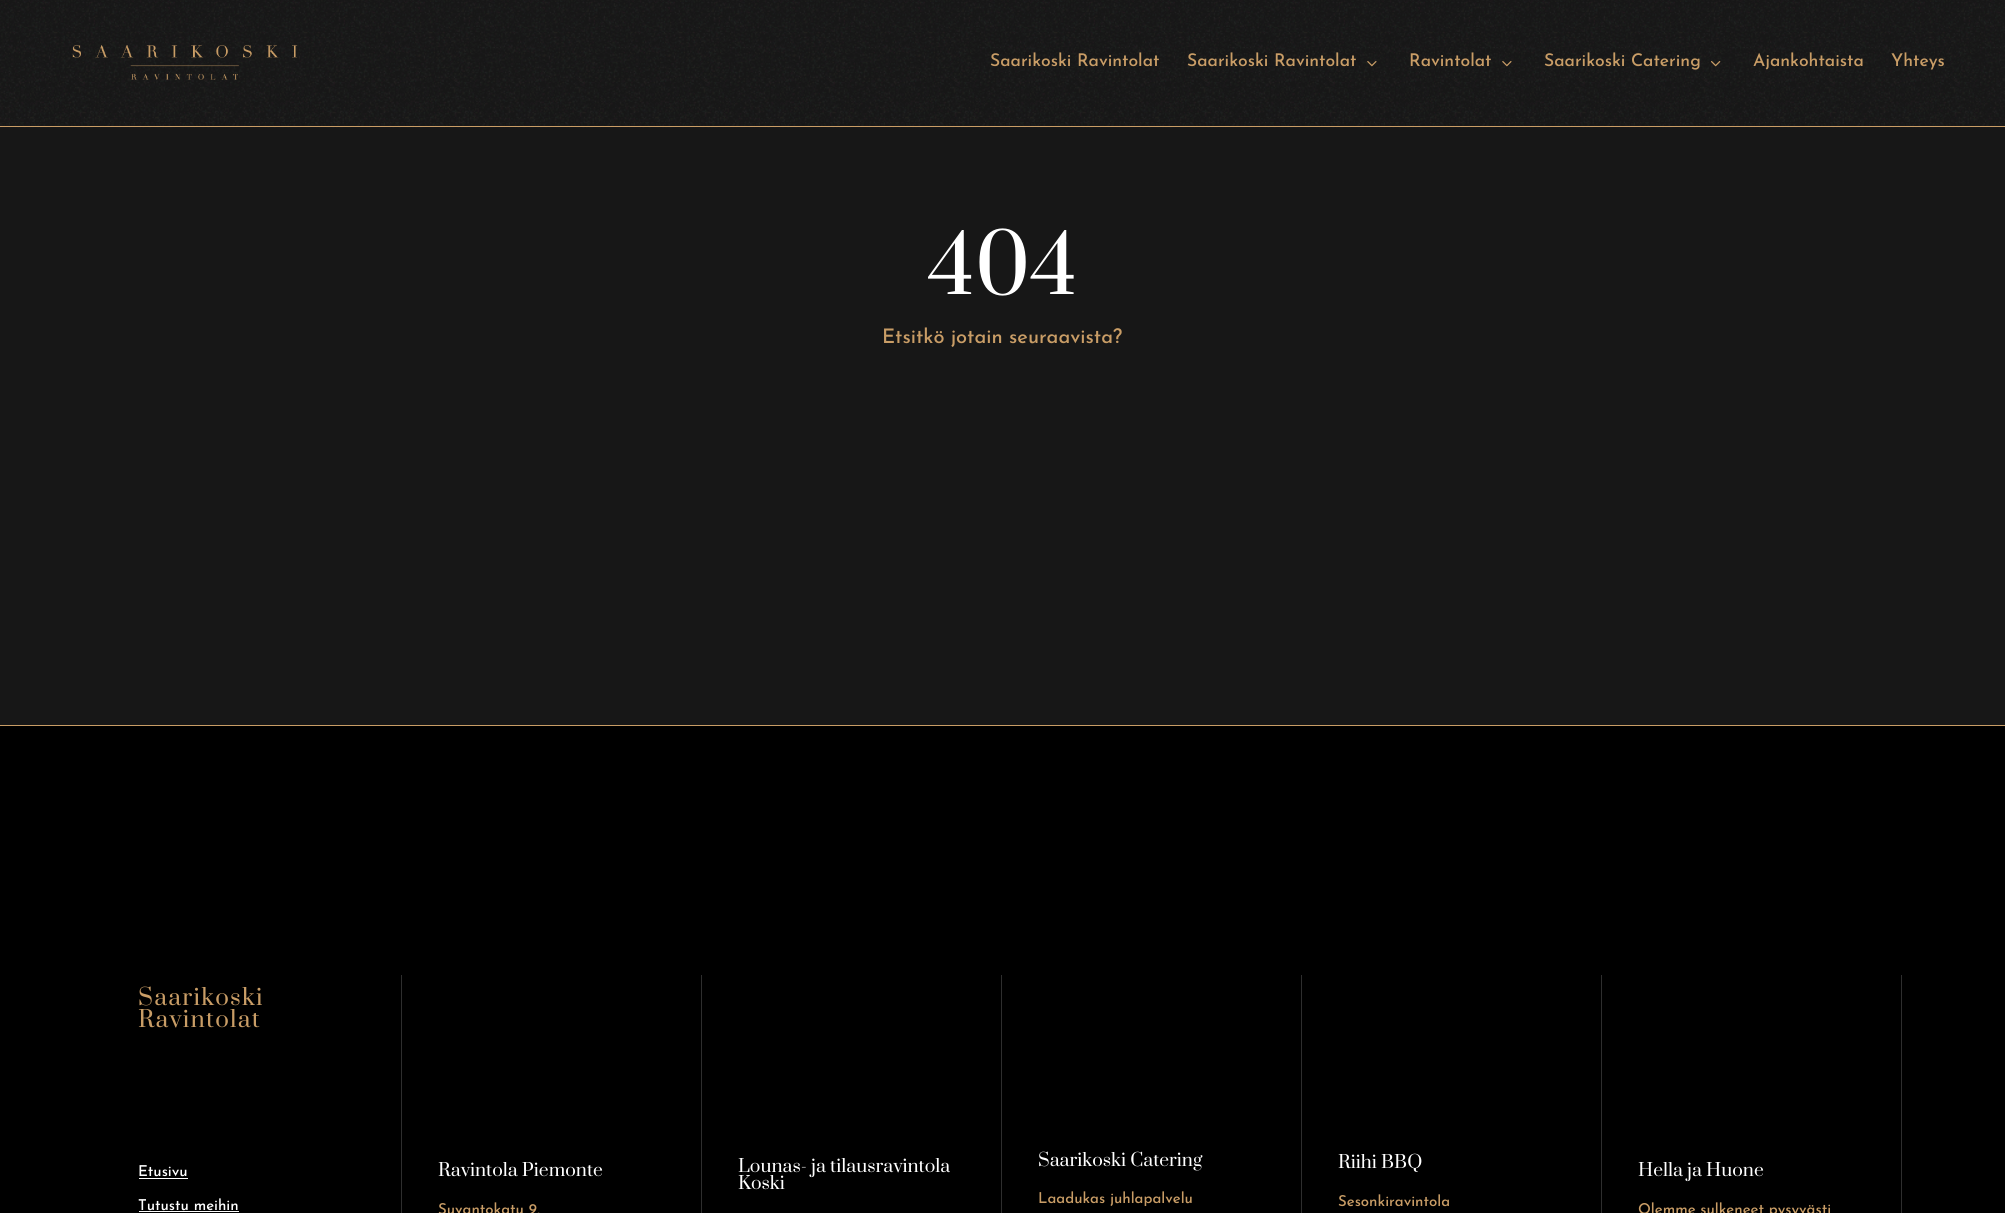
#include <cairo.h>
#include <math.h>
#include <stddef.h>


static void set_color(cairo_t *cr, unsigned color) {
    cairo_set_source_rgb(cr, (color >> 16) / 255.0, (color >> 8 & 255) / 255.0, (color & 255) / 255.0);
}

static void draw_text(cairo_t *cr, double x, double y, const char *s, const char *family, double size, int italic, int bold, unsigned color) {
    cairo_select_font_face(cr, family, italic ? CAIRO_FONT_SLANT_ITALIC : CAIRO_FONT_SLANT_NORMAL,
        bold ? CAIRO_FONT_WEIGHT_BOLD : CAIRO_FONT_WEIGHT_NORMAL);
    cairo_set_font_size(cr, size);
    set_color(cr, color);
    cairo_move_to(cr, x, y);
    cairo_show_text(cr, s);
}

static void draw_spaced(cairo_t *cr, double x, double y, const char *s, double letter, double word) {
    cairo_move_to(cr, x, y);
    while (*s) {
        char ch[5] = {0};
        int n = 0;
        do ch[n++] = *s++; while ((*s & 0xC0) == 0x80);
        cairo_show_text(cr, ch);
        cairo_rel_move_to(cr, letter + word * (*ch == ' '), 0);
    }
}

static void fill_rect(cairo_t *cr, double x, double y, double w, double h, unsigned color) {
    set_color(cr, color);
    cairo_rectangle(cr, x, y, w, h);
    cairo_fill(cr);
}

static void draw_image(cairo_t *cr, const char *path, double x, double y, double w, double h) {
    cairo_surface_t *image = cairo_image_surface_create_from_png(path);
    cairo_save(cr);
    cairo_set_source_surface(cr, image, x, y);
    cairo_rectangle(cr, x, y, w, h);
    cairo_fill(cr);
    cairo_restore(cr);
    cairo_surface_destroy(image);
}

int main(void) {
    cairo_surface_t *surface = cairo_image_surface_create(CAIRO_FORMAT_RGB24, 2005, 1213);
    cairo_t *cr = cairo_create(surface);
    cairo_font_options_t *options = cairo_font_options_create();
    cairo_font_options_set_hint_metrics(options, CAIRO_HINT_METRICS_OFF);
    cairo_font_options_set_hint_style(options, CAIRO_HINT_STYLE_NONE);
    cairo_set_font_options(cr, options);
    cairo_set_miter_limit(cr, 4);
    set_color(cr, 0x171717);
    cairo_paint(cr);
    draw_image(cr, "assets/img1.png", 0, 0, 2005, 128);
    fill_rect(cr, 0, 126, 2005, 1, 0xC99D66);
    draw_image(cr, "assets/img2.png", 72, 45, 226, 35);
    draw_text(cr, 990, 66, "Saarikoski Ravintolat", "Josefin Sans Thin", 17.5, 0, 0, 0xC99D66);
    draw_text(cr, 1187, 66, "Saarikoski Ravintolat", "Josefin Sans Thin", 17.5, 0, 0, 0xC99D66);
    draw_image(cr, "assets/img3.png", 1367, 61, 10, 6);
    draw_text(cr, 1409, 66, "Ravintolat", "Josefin Sans Thin", 17.5, 0, 0, 0xC99D66);
    draw_image(cr, "assets/img4.png", 1502, 61, 10, 6);
    draw_text(cr, 1544, 66, "Saarikoski Catering", "Josefin Sans Thin", 17.5, 0, 0, 0xC99D66);
    draw_image(cr, "assets/img5.png", 1711, 61, 10, 6);
    draw_text(cr, 1753, 66, "Ajankohtaista", "Josefin Sans Thin", 17.5, 0, 0, 0xC99D66);
    draw_text(cr, 1891, 66, "Yhteys", "Josefin Sans Thin", 17.5, 0, 0, 0xC99D66);
    draw_text(cr, 928, 294, "404", "Prata", 80, 0, 0, 0xFFFFFF);
    draw_text(cr, 882, 343, "Etsitkö jotain seuraavista?", "Josefin Sans Thin", 20, 0, 0, 0xC99D66);
    fill_rect(cr, 0, 726, 2005, 487, 0x000000);
    fill_rect(cr, 0, 725, 2005, 1, 0xC99D66);
    fill_rect(cr, 401, 975, 1, 238, 0x2E2E2E);
    cairo_select_font_face(cr, "Prata", CAIRO_FONT_SLANT_NORMAL, CAIRO_FONT_WEIGHT_NORMAL);
    cairo_set_font_size(cr, 22.5);
    set_color(cr, 0xC99D66);
    draw_spaced(cr, 138, 1005, "Saarikoski", 1.25, 0);
    draw_spaced(cr, 138, 1027, "Ravintolat", 1.25, 0);
    draw_text(cr, 138, 1176, "Etusivu", "Josefin Sans Thin", 15, 0, 0, 0xFFFFFF);
    fill_rect(cr, 139, 1178, 49, 1, 0xFFFFFF);
    draw_text(cr, 138, 1210, "Tutustu meihin", "Josefin Sans Thin", 15, 0, 0, 0xFFFFFF);
    fill_rect(cr, 139, 1211, 100, 1, 0xFFFFFF);
    fill_rect(cr, 701, 975, 1, 238, 0x2E2E2E);
    draw_text(cr, 438, 1176, "Ravintola Piemonte", "Prata", 17.5, 0, 0, 0xFFFFFF);
    draw_text(cr, 438, 1214, "Suvantokatu 9,", "Josefin Sans Thin", 15, 0, 0, 0xC99D66);
    fill_rect(cr, 1001, 975, 1, 238, 0x2E2E2E);
    draw_text(cr, 738, 1172, "Lounas- ja tilausravintola", "Prata", 17.5, 0, 0, 0xFFFFFF);
    draw_text(cr, 738, 1189, "Koski", "Prata", 17.5, 0, 0, 0xFFFFFF);
    fill_rect(cr, 1301, 975, 1, 238, 0x2E2E2E);
    draw_text(cr, 1038, 1166, "Saarikoski Catering", "Prata", 17.5, 0, 0, 0xFFFFFF);
    draw_text(cr, 1038, 1203, "Laadukas juhlapalvelu", "Josefin Sans Thin", 15, 0, 0, 0xC99D66);
    fill_rect(cr, 1601, 975, 1, 238, 0x2E2E2E);
    draw_text(cr, 1338, 1168, "Riihi BBQ", "Prata", 17.5, 0, 0, 0xFFFFFF);
    draw_text(cr, 1338, 1206, "Sesonkiravintola", "Josefin Sans Thin", 15, 0, 0, 0xC99D66);
    fill_rect(cr, 1901, 975, 1, 238, 0x2E2E2E);
    draw_text(cr, 1638, 1176, "Hella ja Huone", "Prata", 17.5, 0, 0, 0xFFFFFF);
    draw_text(cr, 1638, 1214, "Olemme sulkeneet pysyvästi", "Josefin Sans Thin", 15, 0, 0, 0xC99D66);
    cairo_surface_write_to_png(surface, "output.png");
    cairo_font_options_destroy(options);
    cairo_destroy(cr);
    cairo_surface_destroy(surface);
    return 0;
}
